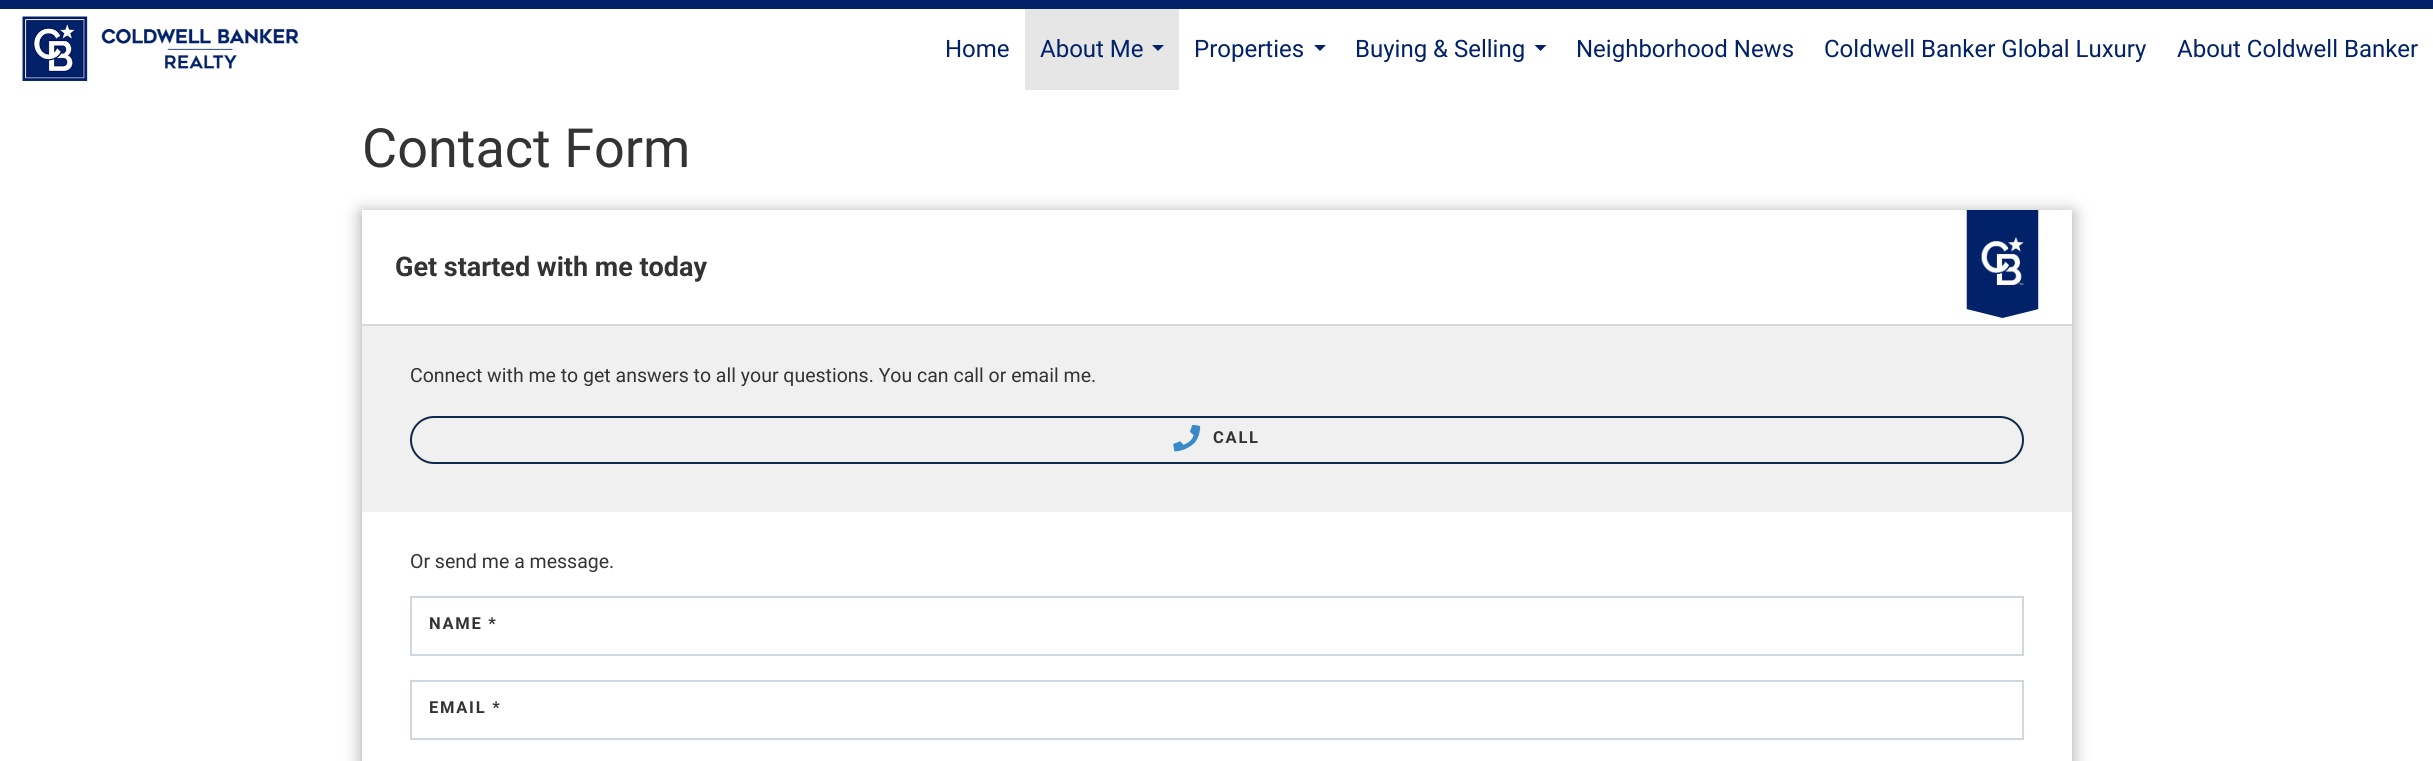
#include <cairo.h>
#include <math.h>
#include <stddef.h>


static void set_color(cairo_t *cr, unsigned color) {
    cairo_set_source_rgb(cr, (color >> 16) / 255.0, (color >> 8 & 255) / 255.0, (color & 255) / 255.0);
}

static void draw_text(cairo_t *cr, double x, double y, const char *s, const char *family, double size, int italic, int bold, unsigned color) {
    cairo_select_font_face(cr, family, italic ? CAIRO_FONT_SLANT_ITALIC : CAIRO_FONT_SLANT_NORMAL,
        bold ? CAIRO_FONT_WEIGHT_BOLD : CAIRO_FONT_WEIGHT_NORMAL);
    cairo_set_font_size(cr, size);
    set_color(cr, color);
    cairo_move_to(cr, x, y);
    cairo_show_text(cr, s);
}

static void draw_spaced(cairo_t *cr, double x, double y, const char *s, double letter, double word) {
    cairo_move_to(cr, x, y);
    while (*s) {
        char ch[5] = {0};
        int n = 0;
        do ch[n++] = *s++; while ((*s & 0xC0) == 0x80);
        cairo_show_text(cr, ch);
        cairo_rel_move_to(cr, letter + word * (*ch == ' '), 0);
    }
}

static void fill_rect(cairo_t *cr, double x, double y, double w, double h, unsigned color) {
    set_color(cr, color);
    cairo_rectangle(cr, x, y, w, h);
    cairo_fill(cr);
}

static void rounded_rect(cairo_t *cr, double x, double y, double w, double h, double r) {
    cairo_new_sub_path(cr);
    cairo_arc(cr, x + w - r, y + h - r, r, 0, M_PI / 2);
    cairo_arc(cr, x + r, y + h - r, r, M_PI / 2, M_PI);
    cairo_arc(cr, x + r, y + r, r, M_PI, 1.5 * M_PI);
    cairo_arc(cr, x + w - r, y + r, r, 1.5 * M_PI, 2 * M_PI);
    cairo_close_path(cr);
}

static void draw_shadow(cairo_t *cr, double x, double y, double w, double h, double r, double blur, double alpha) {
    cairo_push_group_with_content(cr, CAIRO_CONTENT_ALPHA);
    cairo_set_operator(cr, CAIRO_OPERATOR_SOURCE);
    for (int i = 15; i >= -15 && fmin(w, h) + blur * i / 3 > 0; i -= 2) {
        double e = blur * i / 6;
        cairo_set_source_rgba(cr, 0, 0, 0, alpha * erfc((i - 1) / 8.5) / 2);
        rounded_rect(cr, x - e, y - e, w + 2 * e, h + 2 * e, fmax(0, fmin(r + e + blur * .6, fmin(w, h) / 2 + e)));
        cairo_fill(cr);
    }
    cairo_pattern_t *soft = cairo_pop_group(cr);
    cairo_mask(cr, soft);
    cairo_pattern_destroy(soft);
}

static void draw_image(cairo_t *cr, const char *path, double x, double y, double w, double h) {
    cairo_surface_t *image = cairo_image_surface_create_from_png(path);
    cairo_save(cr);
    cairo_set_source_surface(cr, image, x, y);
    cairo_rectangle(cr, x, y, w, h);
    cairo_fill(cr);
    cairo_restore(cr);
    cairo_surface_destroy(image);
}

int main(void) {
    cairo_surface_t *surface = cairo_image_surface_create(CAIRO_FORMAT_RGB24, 2433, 761);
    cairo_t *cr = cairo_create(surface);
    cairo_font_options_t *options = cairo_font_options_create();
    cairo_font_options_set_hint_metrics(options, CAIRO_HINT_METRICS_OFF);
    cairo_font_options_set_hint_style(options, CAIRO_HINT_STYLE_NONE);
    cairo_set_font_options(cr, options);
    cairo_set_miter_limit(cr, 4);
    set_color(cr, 0xFFFFFF);
    cairo_paint(cr);
    fill_rect(cr, 0, 0, 2433, 9, 0x012169);
    draw_image(cr, "assets/img1.png", 22, 16, 277, 65);
    draw_text(cr, 945, 57, "Home", "Roboto", 24, 0, 0, 0x012169);
    fill_rect(cr, 1025, 9, 154, 81, 0xE6E6E6);
    draw_text(cr, 1040, 57, "About Me", "Roboto", 24, 0, 0, 0x012169);
    cairo_new_path(cr);
    cairo_move_to(cr, 1152, 45);
    cairo_line_to(cr, 1164, 45);
    cairo_line_to(cr, 1158, 51);
    cairo_close_path(cr);
    cairo_fill(cr);
    draw_text(cr, 1194, 57, "Properties", "Roboto", 24, 0, 0, 0x012169);
    cairo_new_path(cr);
    cairo_move_to(cr, 1314, 45);
    cairo_line_to(cr, 1326, 45);
    cairo_line_to(cr, 1320, 51);
    cairo_close_path(cr);
    cairo_fill(cr);
    draw_text(cr, 1355, 57, "Buying & Selling", "Roboto", 24, 0, 0, 0x012169);
    cairo_new_path(cr);
    cairo_move_to(cr, 1534.5, 45);
    cairo_line_to(cr, 1546.5, 45);
    cairo_line_to(cr, 1540.5, 51);
    cairo_close_path(cr);
    cairo_fill(cr);
    draw_text(cr, 1576, 57, "Neighborhood News", "Roboto", 24, 0, 0, 0x012169);
    draw_text(cr, 1824, 57, "Coldwell Banker Global Luxury", "Roboto", 24, 0, 0, 0x012169);
    draw_text(cr, 2177, 57, "About Coldwell Banker", "Roboto", 24, 0, 0, 0x012169);
    draw_text(cr, 362, 167, "Contact Form", "Roboto", 54, 0, 0, 0x333333);
    cairo_save(cr);
    cairo_set_fill_rule(cr, CAIRO_FILL_RULE_EVEN_ODD);
    cairo_new_path(cr);
    cairo_move_to(cr, 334, 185);
    cairo_line_to(cr, 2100, 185);
    cairo_line_to(cr, 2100, 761);
    cairo_line_to(cr, 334, 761);
    cairo_close_path(cr);
    cairo_move_to(cr, 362, 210);
    cairo_line_to(cr, 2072, 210);
    cairo_line_to(cr, 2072, 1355);
    cairo_line_to(cr, 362, 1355);
    cairo_close_path(cr);
    cairo_clip(cr);
    set_color(cr, 0x474747);
    draw_shadow(cr, 362, 213, 1710, 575, 0, 9, 0.5);
    cairo_restore(cr);
    fill_rect(cr, 2071, 210, 1, 114, 0xFFFFFF);
    fill_rect(cr, 362, 324, 1710, 2, 0xD9D9D9);
    draw_text(cr, 395, 276, "Get started with me today", "Roboto", 27, 0, 1, 0x333333);
    draw_image(cr, "assets/img2.png", 1966, 210, 73, 108);
    fill_rect(cr, 362, 326, 1710, 186, 0xF0F0F0);
    draw_text(cr, 410, 382, "Connect with me to get answers to all your questions. You can call or email me.", "Roboto", 19.5, 0, 0, 0x333333);
    rounded_rect(cr, 411, 417, 1612, 46, 23);
    set_color(cr, 0x0E2B4A);
    cairo_stroke(cr);
    draw_image(cr, "assets/img3.png", 1173, 425, 28, 27);
    cairo_select_font_face(cr, "Roboto", CAIRO_FONT_SLANT_NORMAL, CAIRO_FONT_WEIGHT_BOLD);
    cairo_set_font_size(cr, 16.5);
    set_color(cr, 0x333333);
    draw_spaced(cr, 1213, 443, "CALL", 1.75, 0);
    draw_text(cr, 410, 568, "Or send me a message.", "Roboto", 19.5, 0, 0, 0x333333);
    cairo_rectangle(cr, 411, 597, 1612, 58);
    set_color(cr, 0xD0D7DF);
    cairo_stroke(cr);
    cairo_select_font_face(cr, "Roboto", CAIRO_FONT_SLANT_NORMAL, CAIRO_FONT_WEIGHT_BOLD);
    cairo_set_font_size(cr, 16.5);
    set_color(cr, 0x333333);
    draw_spaced(cr, 429, 629, "NAME *", 1.75, 0);
    cairo_rectangle(cr, 411, 681, 1612, 58);
    set_color(cr, 0xD0D7DF);
    cairo_stroke(cr);
    set_color(cr, 0x333333);
    draw_spaced(cr, 429, 713, "EMAIL *", 1.75, 0);
    cairo_surface_write_to_png(surface, "output.png");
    cairo_font_options_destroy(options);
    cairo_destroy(cr);
    cairo_surface_destroy(surface);
    return 0;
}
